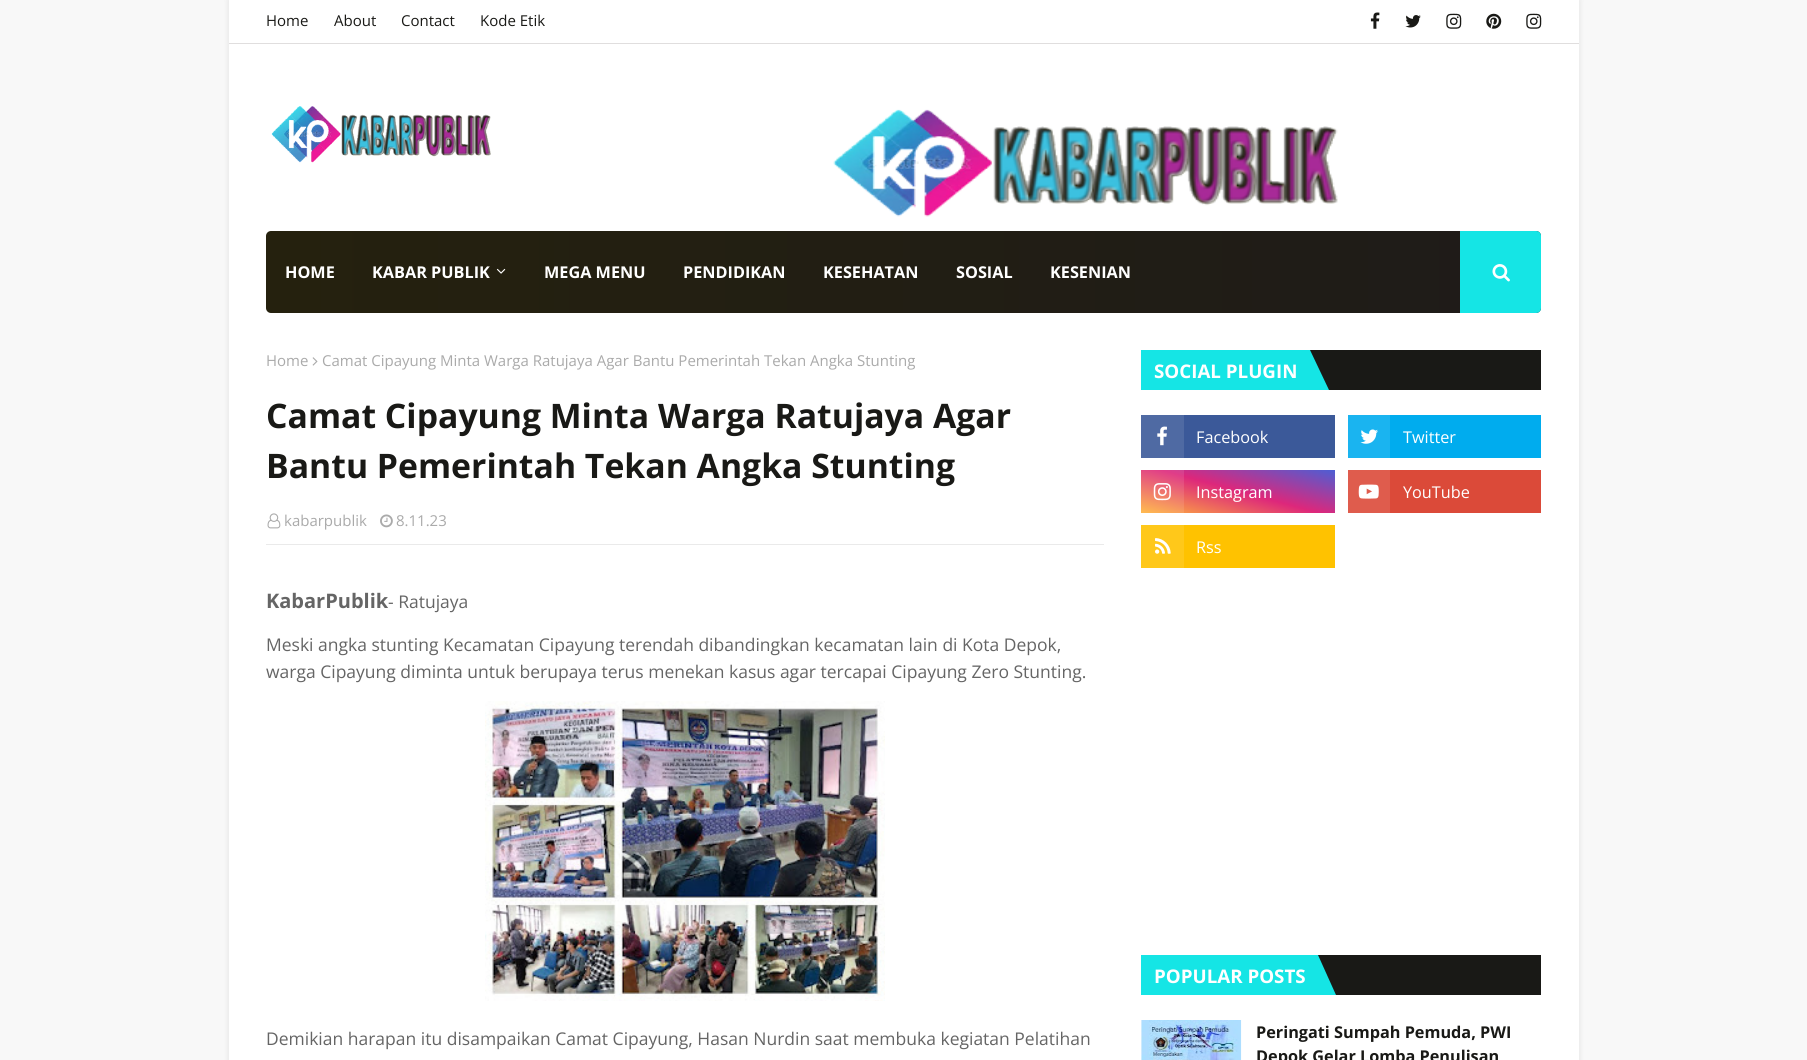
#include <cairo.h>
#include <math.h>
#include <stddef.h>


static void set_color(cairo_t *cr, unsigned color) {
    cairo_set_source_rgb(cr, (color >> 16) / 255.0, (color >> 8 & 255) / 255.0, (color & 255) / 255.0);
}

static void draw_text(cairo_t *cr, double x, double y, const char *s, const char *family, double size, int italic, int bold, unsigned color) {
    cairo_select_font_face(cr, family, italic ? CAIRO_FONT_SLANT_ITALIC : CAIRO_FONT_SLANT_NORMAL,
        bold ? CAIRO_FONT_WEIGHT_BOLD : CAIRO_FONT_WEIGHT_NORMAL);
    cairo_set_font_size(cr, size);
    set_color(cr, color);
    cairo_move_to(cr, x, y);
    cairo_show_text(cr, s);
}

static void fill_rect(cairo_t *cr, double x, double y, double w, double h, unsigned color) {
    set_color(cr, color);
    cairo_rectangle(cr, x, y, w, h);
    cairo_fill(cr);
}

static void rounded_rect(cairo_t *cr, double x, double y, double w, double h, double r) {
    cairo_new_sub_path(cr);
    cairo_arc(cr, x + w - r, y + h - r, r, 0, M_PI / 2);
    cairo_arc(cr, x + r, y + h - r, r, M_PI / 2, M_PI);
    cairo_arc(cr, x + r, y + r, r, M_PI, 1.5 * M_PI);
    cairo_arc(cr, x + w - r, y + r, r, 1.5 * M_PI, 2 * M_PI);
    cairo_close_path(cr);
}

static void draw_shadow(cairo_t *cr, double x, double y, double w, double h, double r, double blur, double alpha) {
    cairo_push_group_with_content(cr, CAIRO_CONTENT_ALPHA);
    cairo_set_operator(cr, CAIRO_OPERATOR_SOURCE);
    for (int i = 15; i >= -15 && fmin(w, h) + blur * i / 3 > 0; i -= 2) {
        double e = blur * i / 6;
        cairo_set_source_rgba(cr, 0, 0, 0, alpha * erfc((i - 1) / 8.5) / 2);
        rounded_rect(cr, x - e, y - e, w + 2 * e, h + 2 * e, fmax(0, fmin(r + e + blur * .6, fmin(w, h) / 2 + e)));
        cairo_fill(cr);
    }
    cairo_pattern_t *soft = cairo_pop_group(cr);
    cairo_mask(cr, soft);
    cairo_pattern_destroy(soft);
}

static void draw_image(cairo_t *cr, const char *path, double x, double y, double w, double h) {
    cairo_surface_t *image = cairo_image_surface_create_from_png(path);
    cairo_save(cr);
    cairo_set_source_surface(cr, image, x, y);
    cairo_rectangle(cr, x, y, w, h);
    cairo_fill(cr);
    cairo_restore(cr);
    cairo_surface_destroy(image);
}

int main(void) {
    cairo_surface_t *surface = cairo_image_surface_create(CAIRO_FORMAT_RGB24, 1807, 1060);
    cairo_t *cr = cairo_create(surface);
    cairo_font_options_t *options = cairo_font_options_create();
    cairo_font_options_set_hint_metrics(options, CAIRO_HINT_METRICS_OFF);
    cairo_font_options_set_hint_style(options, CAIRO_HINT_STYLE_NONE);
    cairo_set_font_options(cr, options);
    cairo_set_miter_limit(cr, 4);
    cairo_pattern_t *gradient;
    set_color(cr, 0xF8F8F8);
    cairo_paint(cr);
    set_color(cr, 0x000000);
    draw_shadow(cr, 229, 0, 1350, 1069, 0, 3, 0.1);
    fill_rect(cr, 229, 0, 1350, 1060, 0xFFFFFF);
    fill_rect(cr, 229, 43, 1350, 1, 0xE0DEDE);
    draw_text(cr, 266, 26, "Home", "Open Sans", 15, 0, 0, 0x191916);
    draw_text(cr, 334, 26, "About", "Open Sans", 15, 0, 0, 0x191916);
    draw_text(cr, 401, 26, "Contact", "Open Sans", 15, 0, 0, 0x191916);
    draw_text(cr, 480, 26, "Kode Etik", "Open Sans", 15, 0, 0, 0x191916);
    draw_image(cr, "assets/img1.png", 1370, 12, 10, 17);
    draw_image(cr, "assets/img2.png", 1405, 15, 16, 13);
    draw_image(cr, "assets/img3.png", 1446, 13, 16, 16);
    draw_image(cr, "assets/img4.png", 1486, 13, 16, 16);
    draw_image(cr, "assets/img3.png", 1526, 13, 16, 16);
    draw_image(cr, "assets/img5.png", 271, 106, 220, 57);
    draw_image(cr, "assets/img6.png", 833, 109, 505, 108);
    gradient = cairo_pattern_create_linear(266, 272, 1541, 272);
    cairo_pattern_add_color_stop_rgba(gradient, 0, 0.145, 0.129, 0.055, 1);
    cairo_pattern_add_color_stop_rgba(gradient, 1, 0.118, 0.106, 0.098, 1);
    cairo_set_source(cr, gradient);
    cairo_pattern_destroy(gradient);
    rounded_rect(cr, 266, 231, 1275, 82, 5);
    cairo_fill(cr);
    draw_text(cr, 285, 278, "HOME", "Open Sans", 16.25, 0, 1, 0xFFFFFF);
    draw_text(cr, 372, 278, "KABAR PUBLIK", "Open Sans", 16.25, 0, 1, 0xFFFFFF);
    draw_image(cr, "assets/img7.png", 496, 268, 10, 6);
    draw_text(cr, 544, 278, "MEGA MENU", "Open Sans", 16.25, 0, 1, 0xFFFFFF);
    draw_text(cr, 683, 278, "PENDIDIKAN", "Open Sans", 16.25, 0, 1, 0xFFFFFF);
    draw_text(cr, 823, 278, "KESEHATAN", "Open Sans", 16.25, 0, 1, 0xFFFFFF);
    draw_text(cr, 956, 278, "SOSIAL", "Open Sans", 16.25, 0, 1, 0xFFFFFF);
    draw_text(cr, 1050, 278, "KESENIAN", "Open Sans", 16.25, 0, 1, 0xFFFFFF);
    set_color(cr, 0x15E5E5);
    cairo_new_path(cr);
    cairo_move_to(cr, 1460, 231);
    cairo_line_to(cr, 1536, 231);
    cairo_curve_to(cr, 1539, 231, 1541, 233, 1541, 236);
    cairo_line_to(cr, 1541, 308);
    cairo_curve_to(cr, 1541, 311, 1539, 313, 1536, 313);
    cairo_line_to(cr, 1460, 313);
    cairo_close_path(cr);
    cairo_fill(cr);
    draw_image(cr, "assets/img8.png", 1492, 264, 18, 18);
    draw_text(cr, 266, 366, "Home", "Open Sans", 15, 0, 0, 0xAAAAAA);
    draw_image(cr, "assets/img9.png", 312, 357, 6, 9);
    draw_text(cr, 322, 366, "Camat Cipayung Minta Warga Ratujaya Agar Bantu Pemerintah Tekan Angka Stunting", "Open Sans", 15, 0, 0, 0xAAAAAA);
    draw_text(cr, 266, 428, "Camat Cipayung Minta Warga Ratujaya Agar", "Open Sans", 33.75, 0, 1, 0x191916);
    draw_text(cr, 266, 478, "Bantu Pemerintah Tekan Angka Stunting", "Open Sans", 33.75, 0, 1, 0x191916);
    fill_rect(cr, 266, 544, 838, 1, 0xEAEAEA);
    draw_image(cr, "assets/img10.png", 267, 513, 14, 16);
    draw_text(cr, 284, 526, "kabarpublik", "Open Sans", 15, 0, 0, 0xAAAAAA);
    draw_image(cr, "assets/img11.png", 380, 514, 13, 14);
    draw_text(cr, 396, 526, "8.11.23", "Open Sans", 15, 0, 0, 0xAAAAAA);
    draw_text(cr, 266, 608, "KabarPublik", "Open Sans", 20, 0, 1, 0x656565);
    draw_text(cr, 388, 608, "- Ratujaya", "Open Sans", 17.5, 0, 0, 0x656565);
    draw_text(cr, 266, 651, "Meski angka stunting Kecamatan Cipayung terendah dibandingkan kecamatan lain di Kota Depok,", "Open Sans", 17.5, 0, 0, 0x656565);
    draw_text(cr, 266, 678, "warga Cipayung diminta untuk berupaya terus menekan kasus agar tercapai Cipayung Zero Stunting.", "Open Sans", 17.5, 0, 0, 0x656565);
    draw_image(cr, "assets/img12.png", 485, 701, 400, 300);
    draw_text(cr, 266, 1045, "Demikian harapan itu disampaikan Camat Cipayung, Hasan Nurdin saat membuka kegiatan Pelatihan", "Open Sans", 17.5, 0, 0, 0x656565);
    fill_rect(cr, 1310, 350, 231, 40, 0x191916);
    fill_rect(cr, 1141, 350, 169, 40, 0x15E5E5);
    draw_text(cr, 1154, 378, "SOCIAL PLUGIN", "Open Sans", 18.75, 0, 1, 0xFFFFFF);
    set_color(cr, 0x15E5E5);
    cairo_new_path(cr);
    cairo_move_to(cr, 1310, 390);
    cairo_line_to(cr, 1310, 350);
    cairo_line_to(cr, 1329, 390);
    cairo_close_path(cr);
    cairo_fill(cr);
    fill_rect(cr, 1184, 415, 151, 43, 0x3B5999);
    fill_rect(cr, 1141, 415, 43, 43, 0x4F6AA3);
    draw_image(cr, "assets/img13.png", 1157, 426, 10, 20);
    draw_text(cr, 1196, 443, "Facebook", "Open Sans", 16.25, 0, 0, 0xFFFFFF);
    fill_rect(cr, 1390, 415, 151, 43, 0x00ACEE);
    fill_rect(cr, 1348, 415, 42, 43, 0x1AB4F0);
    draw_image(cr, "assets/img14.png", 1360, 429, 18, 15);
    draw_text(cr, 1403, 443, "Twitter", "Open Sans", 16.25, 0, 0, 0xFFFFFF);
    gradient = cairo_pattern_create_linear(1226, 535, 1250, 447);
    cairo_pattern_add_color_stop_rgba(gradient, 0, 1, 0.694, 0.239, 1);
    cairo_pattern_add_color_stop_rgba(gradient, 0.5, 0.867, 0.153, 0.482, 1);
    cairo_pattern_add_color_stop_rgba(gradient, 1, 0.302, 0.369, 0.831, 1);
    cairo_set_source(cr, gradient);
    cairo_pattern_destroy(gradient);
    cairo_rectangle(cr, 1184, 470, 151, 43);
    cairo_fill(cr);
    gradient = cairo_pattern_create_linear(1226, 535, 1250, 447);
    cairo_pattern_add_color_stop_rgba(gradient, 0, 1, 0.725, 0.314, 1);
    cairo_pattern_add_color_stop_rgba(gradient, 0.5, 0.878, 0.239, 0.533, 1);
    cairo_pattern_add_color_stop_rgba(gradient, 1, 0.373, 0.431, 0.847, 1);
    cairo_set_source(cr, gradient);
    cairo_pattern_destroy(gradient);
    cairo_rectangle(cr, 1141, 470, 43, 43);
    cairo_fill(cr);
    draw_image(cr, "assets/img15.png", 1153, 483, 18, 18);
    draw_text(cr, 1196, 498, "Instagram", "Open Sans", 16.25, 0, 0, 0xFFFFFF);
    fill_rect(cr, 1390, 470, 151, 43, 0xDB4A39);
    fill_rect(cr, 1348, 470, 42, 43, 0xDF5C4D);
    draw_image(cr, "assets/img16.png", 1358, 484, 21, 15);
    draw_text(cr, 1403, 498, "YouTube", "Open Sans", 16.25, 0, 0, 0xFFFFFF);
    fill_rect(cr, 1184, 525, 151, 43, 0xFFC200);
    fill_rect(cr, 1141, 525, 43, 43, 0xFFC81A);
    draw_image(cr, "assets/img17.png", 1155, 538, 16, 16);
    draw_text(cr, 1196, 553, "Rss", "Open Sans", 16.25, 0, 0, 0xFFFFFF);
    fill_rect(cr, 1318, 955, 223, 40, 0x191916);
    fill_rect(cr, 1141, 955, 177, 40, 0x15E5E5);
    draw_text(cr, 1154, 983, "POPULAR POSTS", "Open Sans", 18.75, 0, 1, 0xFFFFFF);
    set_color(cr, 0x15E5E5);
    cairo_new_path(cr);
    cairo_move_to(cr, 1318, 995);
    cairo_line_to(cr, 1318, 955);
    cairo_line_to(cr, 1336, 995);
    cairo_close_path(cr);
    cairo_fill(cr);
    fill_rect(cr, 1141, 1020, 1, 40, 0xFAFAFA);
    draw_image(cr, "assets/img18.png", 1141, 1020, 101, 40);
    draw_text(cr, 1256, 1038, "Peringati Sumpah Pemuda, PWI", "Open Sans", 16.25, 0, 1, 0x191916);
    draw_text(cr, 1256, 1062, "Depok Gelar Lomba Penulisan", "Open Sans", 16.25, 0, 1, 0x191916);
    cairo_surface_write_to_png(surface, "output.png");
    cairo_font_options_destroy(options);
    cairo_destroy(cr);
    cairo_surface_destroy(surface);
    return 0;
}
